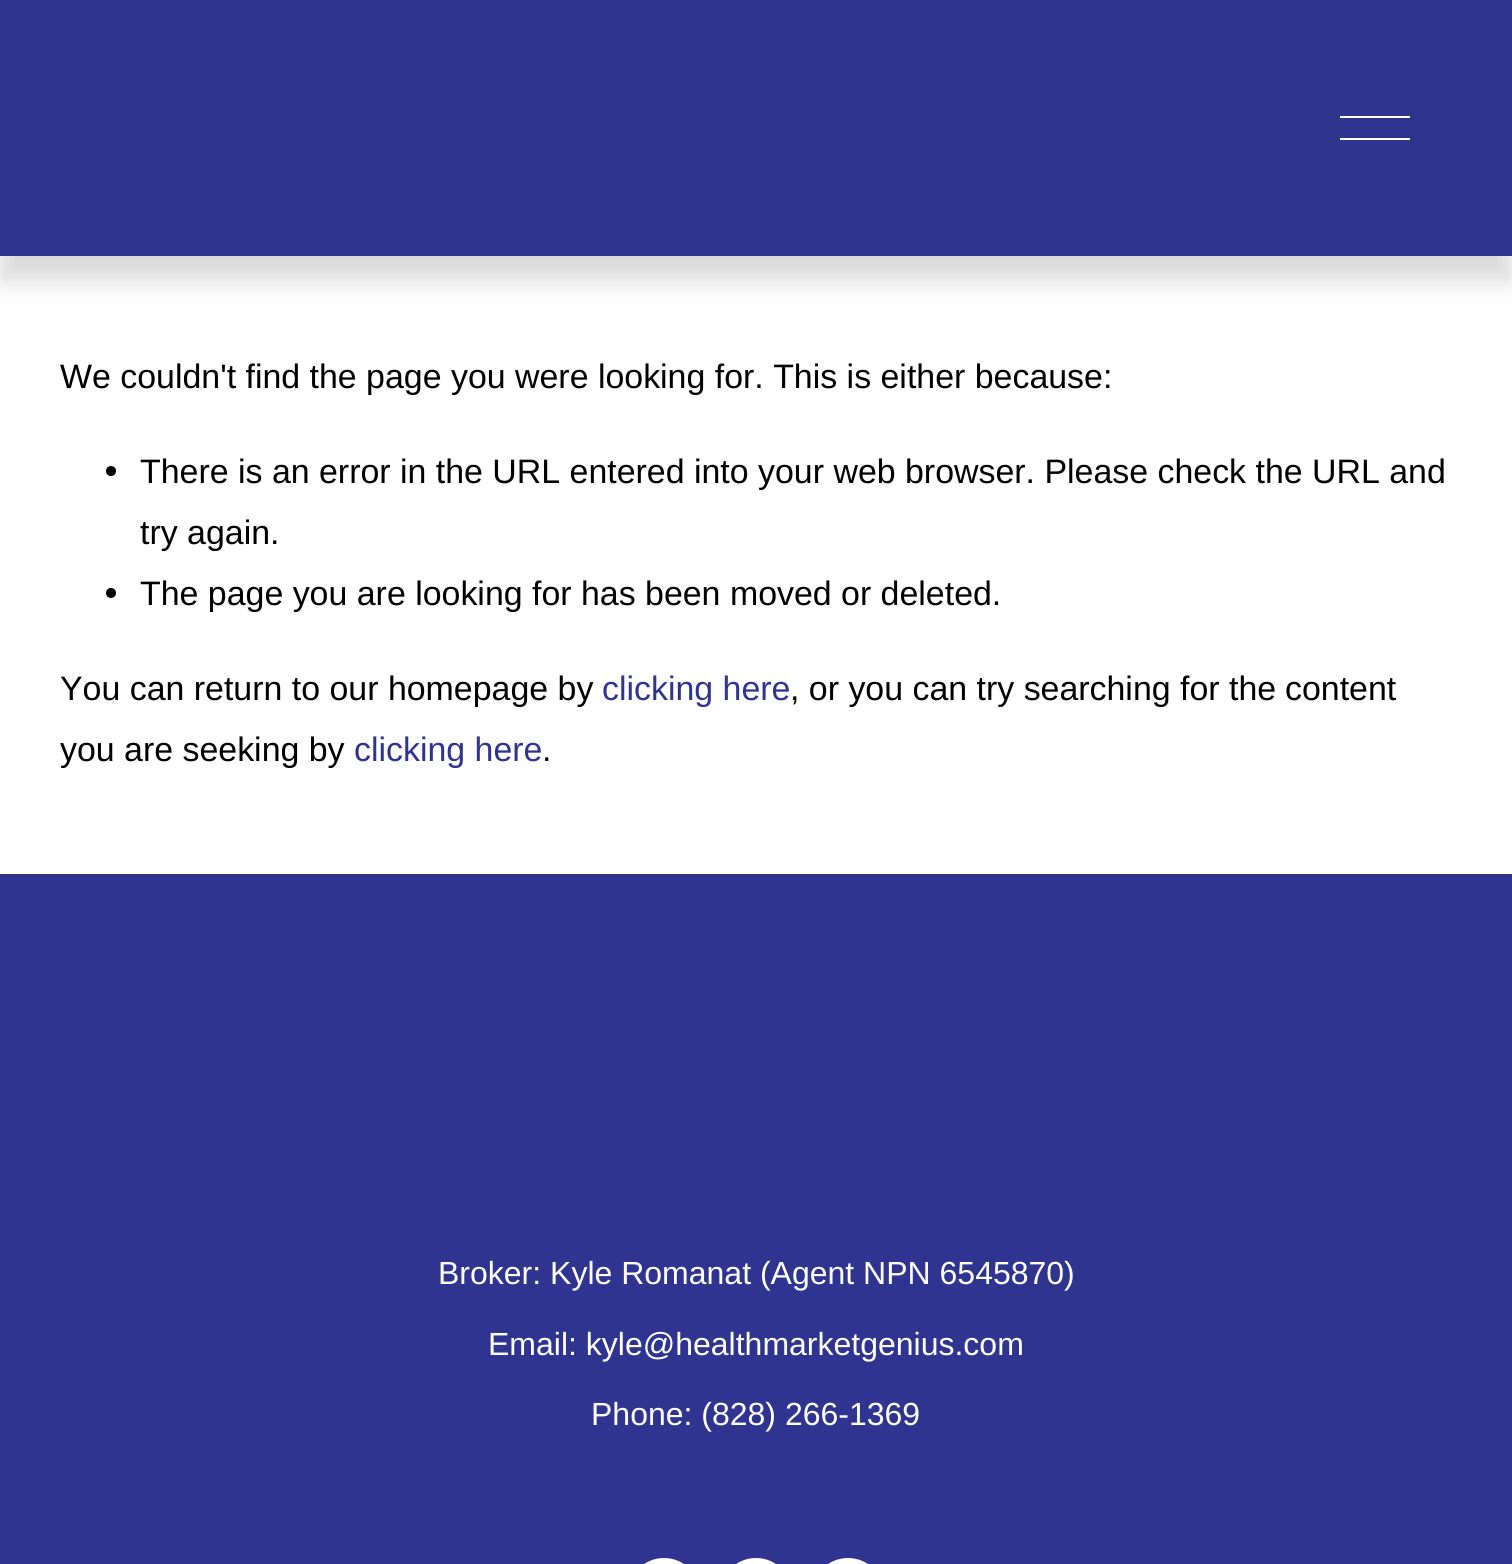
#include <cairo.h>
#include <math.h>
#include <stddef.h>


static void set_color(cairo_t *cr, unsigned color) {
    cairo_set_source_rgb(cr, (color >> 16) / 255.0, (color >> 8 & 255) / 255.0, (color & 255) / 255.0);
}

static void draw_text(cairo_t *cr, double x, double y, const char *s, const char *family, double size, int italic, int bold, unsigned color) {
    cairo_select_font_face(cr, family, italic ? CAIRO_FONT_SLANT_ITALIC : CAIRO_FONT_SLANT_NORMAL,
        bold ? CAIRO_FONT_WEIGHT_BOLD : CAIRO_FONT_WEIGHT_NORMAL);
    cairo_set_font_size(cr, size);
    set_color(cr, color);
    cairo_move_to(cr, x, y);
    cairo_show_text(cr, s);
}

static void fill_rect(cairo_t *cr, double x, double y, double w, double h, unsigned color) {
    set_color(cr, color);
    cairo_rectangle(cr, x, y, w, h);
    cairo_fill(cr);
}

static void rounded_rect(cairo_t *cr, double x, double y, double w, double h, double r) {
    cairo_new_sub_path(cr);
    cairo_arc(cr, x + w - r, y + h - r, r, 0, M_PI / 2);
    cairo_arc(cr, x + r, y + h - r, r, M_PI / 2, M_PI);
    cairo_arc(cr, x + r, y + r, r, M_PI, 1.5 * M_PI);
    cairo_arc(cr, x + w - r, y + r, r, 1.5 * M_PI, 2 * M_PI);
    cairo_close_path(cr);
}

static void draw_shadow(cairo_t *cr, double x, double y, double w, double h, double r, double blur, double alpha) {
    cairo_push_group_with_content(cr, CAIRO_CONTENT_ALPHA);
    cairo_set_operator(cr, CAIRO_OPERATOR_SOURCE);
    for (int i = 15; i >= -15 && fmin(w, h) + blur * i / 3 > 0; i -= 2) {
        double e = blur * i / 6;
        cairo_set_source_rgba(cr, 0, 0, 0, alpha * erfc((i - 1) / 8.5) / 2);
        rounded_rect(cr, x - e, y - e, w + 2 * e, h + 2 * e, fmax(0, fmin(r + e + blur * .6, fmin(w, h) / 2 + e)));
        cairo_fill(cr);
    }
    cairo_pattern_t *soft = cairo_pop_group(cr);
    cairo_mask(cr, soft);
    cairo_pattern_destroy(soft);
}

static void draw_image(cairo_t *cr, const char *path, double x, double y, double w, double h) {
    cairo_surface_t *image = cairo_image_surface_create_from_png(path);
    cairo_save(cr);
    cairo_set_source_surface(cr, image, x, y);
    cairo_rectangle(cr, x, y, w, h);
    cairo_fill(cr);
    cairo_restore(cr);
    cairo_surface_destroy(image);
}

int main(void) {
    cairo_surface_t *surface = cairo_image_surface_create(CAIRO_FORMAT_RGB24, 1512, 1564);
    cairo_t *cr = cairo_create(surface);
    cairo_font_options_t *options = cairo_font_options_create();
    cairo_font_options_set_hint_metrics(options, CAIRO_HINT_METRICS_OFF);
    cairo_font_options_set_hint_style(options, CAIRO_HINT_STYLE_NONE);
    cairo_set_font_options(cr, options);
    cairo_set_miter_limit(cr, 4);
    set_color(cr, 0xFFFFFF);
    cairo_paint(cr);
    set_color(cr, 0xD9D9D9);
    draw_shadow(cr, 0, 24, 1512, 256, 0, 12, 1);
    fill_rect(cr, 0, 0, 1512, 256, 0x2E348E);
    fill_rect(cr, 1340, 116, 70, 2, 0xFFFFFF);
    fill_rect(cr, 1340, 138, 70, 2, 0xFFFFFF);
    draw_text(cr, 60, 388, "We couldn't find the page you were looking for. This is either because:", "Liberation Sans", 33.9, 0, 0, 0x000000);
    cairo_new_path(cr);
    cairo_arc(cr, 111, 471, 5, 0, 2 * M_PI);
    cairo_fill(cr);
    draw_text(cr, 140, 483, "There is an error in the URL entered into your web browser. Please check the URL and", "Liberation Sans", 33.9, 0, 0, 0x000000);
    draw_text(cr, 140, 544, "try again.", "Liberation Sans", 33.9, 0, 0, 0x000000);
    cairo_new_path(cr);
    cairo_arc(cr, 111, 593, 5, 0, 2 * M_PI);
    cairo_fill(cr);
    draw_text(cr, 140, 605, "The page you are looking for has been moved or deleted.", "Liberation Sans", 33.9, 0, 0, 0x000000);
    draw_text(cr, 60, 700, "You can return to our homepage by", "Liberation Sans", 33.9, 0, 0, 0x000000);
    draw_text(cr, 602, 700, "clicking here", "Liberation Sans", 33.9, 0, 0, 0x2E348F);
    draw_text(cr, 790, 700, ", or you can try searching for the", "Liberation Sans", 33.9, 0, 0, 0x000000);
    draw_text(cr, 1285, 700, "content", "Liberation Sans", 33.9, 0, 0, 0x000000);
    draw_text(cr, 60, 761, "you are seeking by", "Liberation Sans", 33.9, 0, 0, 0x000000);
    draw_text(cr, 354, 761, "clicking here", "Liberation Sans", 33.9, 0, 0, 0x2E348F);
    draw_text(cr, 542, 761, ".", "Liberation Sans", 33.9, 0, 0, 0x000000);
    fill_rect(cr, 0, 874, 1512, 690, 0x2E348F);
    draw_text(cr, 438, 1284, "Broker: Kyle Romanat (Agent NPN 6545870)", "Liberation Sans", 32, 0, 0, 0xFFFFFF);
    draw_text(cr, 488, 1355, "Email: kyle@healthmarketgenius.com", "Liberation Sans", 32, 0, 0, 0xFFFFFF);
    draw_text(cr, 591, 1425, "Phone: (828) 266-1369", "Liberation Sans", 32, 0, 0, 0xFFFFFF);
    draw_image(cr, "assets/img1.png", 644, 1558, 40, 6);
    draw_image(cr, "assets/img1.png", 736, 1558, 40, 6);
    cairo_set_fill_rule(cr, CAIRO_FILL_RULE_EVEN_ODD);
    cairo_new_path(cr);
    cairo_move_to(cr, 848, 1558);
    cairo_curve_to(cr, 828, 1558, 812, 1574, 812, 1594);
    cairo_curve_to(cr, 812, 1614, 828, 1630, 848, 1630);
    cairo_curve_to(cr, 868, 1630, 884, 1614, 884, 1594);
    cairo_curve_to(cr, 884, 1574, 868, 1558, 848, 1558);
    cairo_close_path(cr);
    cairo_move_to(cr, 857, 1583);
    cairo_line_to(cr, 857, 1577);
    cairo_curve_to(cr, 846, 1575, 844, 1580, 844, 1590);
    cairo_line_to(cr, 839, 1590);
    cairo_line_to(cr, 839, 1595);
    cairo_line_to(cr, 844, 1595);
    cairo_line_to(cr, 844, 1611);
    cairo_line_to(cr, 850, 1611);
    cairo_line_to(cr, 850, 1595);
    cairo_line_to(cr, 856, 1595);
    cairo_line_to(cr, 856, 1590);
    cairo_line_to(cr, 850, 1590);
    cairo_curve_to(cr, 850, 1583, 850, 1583, 857, 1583);
    cairo_close_path(cr);
    cairo_fill(cr);
    cairo_surface_write_to_png(surface, "output.png");
    cairo_font_options_destroy(options);
    cairo_destroy(cr);
    cairo_surface_destroy(surface);
    return 0;
}
